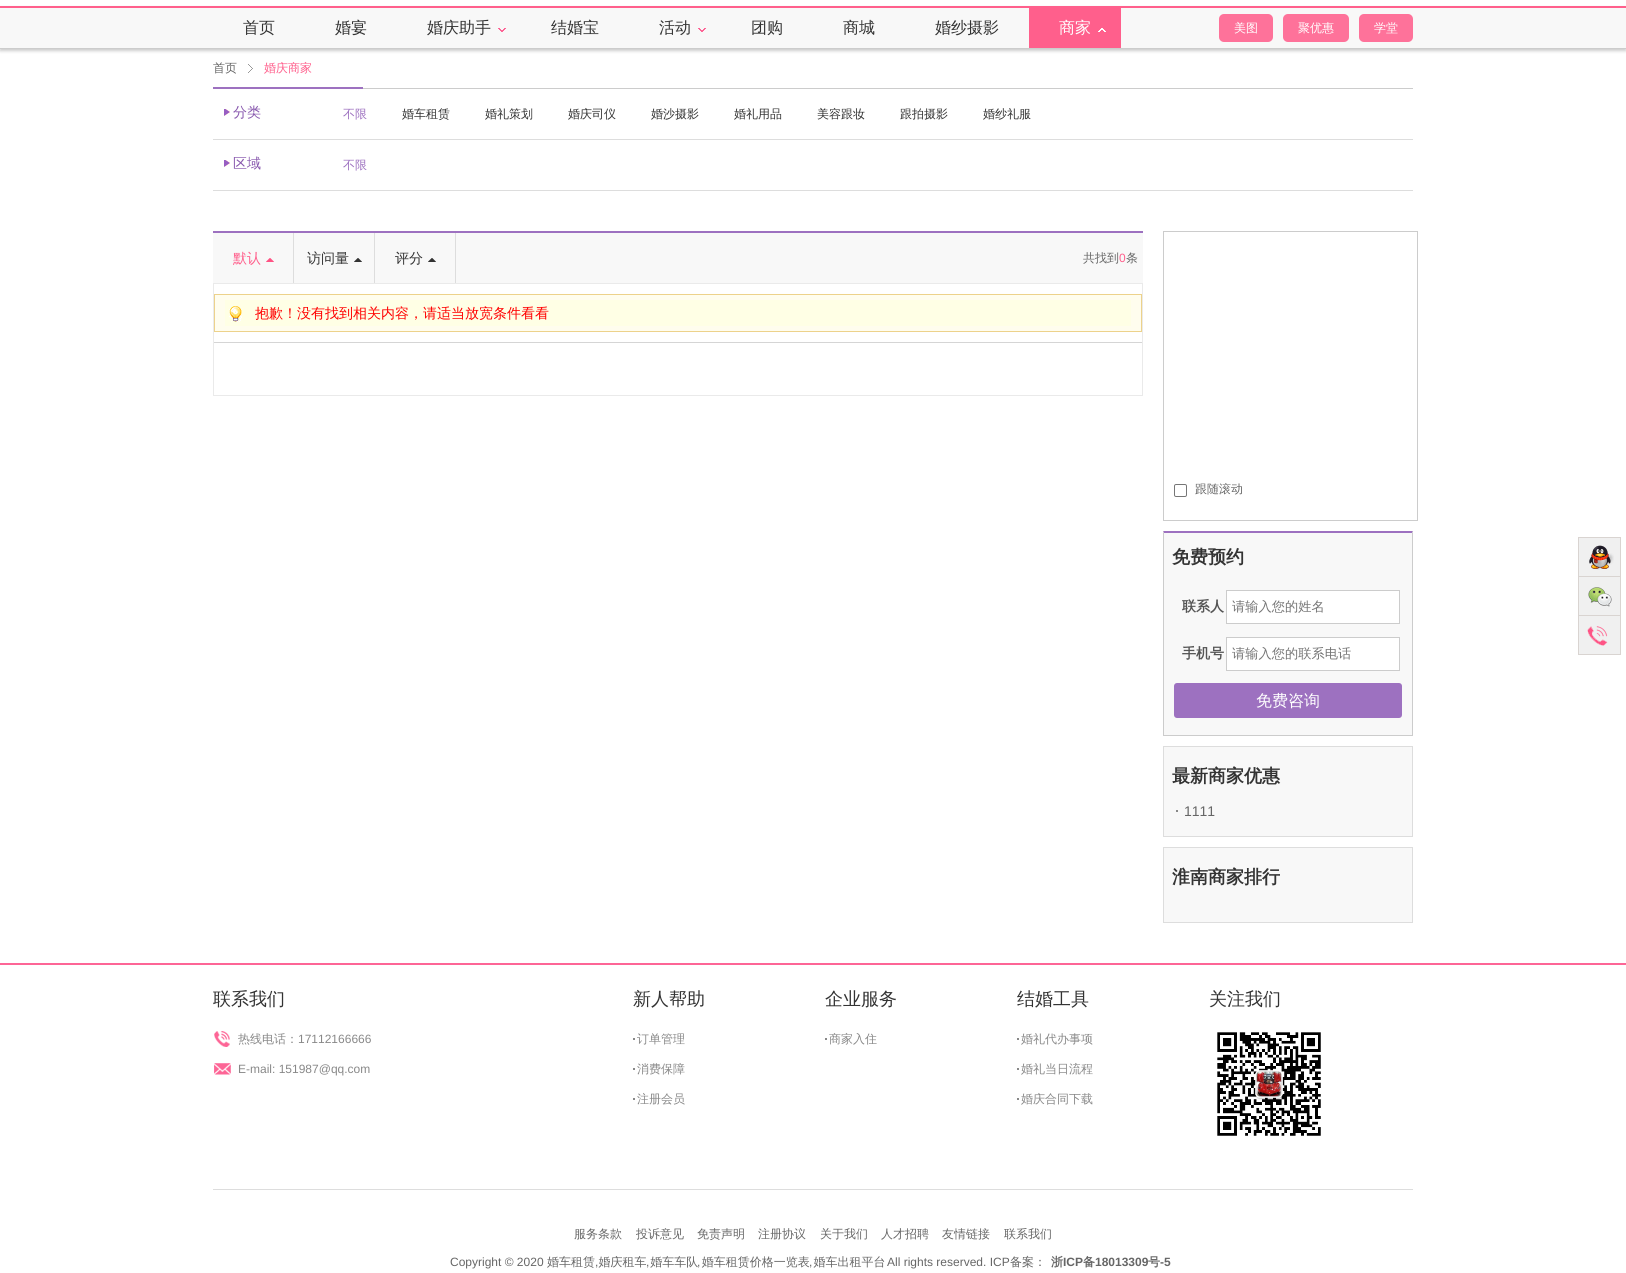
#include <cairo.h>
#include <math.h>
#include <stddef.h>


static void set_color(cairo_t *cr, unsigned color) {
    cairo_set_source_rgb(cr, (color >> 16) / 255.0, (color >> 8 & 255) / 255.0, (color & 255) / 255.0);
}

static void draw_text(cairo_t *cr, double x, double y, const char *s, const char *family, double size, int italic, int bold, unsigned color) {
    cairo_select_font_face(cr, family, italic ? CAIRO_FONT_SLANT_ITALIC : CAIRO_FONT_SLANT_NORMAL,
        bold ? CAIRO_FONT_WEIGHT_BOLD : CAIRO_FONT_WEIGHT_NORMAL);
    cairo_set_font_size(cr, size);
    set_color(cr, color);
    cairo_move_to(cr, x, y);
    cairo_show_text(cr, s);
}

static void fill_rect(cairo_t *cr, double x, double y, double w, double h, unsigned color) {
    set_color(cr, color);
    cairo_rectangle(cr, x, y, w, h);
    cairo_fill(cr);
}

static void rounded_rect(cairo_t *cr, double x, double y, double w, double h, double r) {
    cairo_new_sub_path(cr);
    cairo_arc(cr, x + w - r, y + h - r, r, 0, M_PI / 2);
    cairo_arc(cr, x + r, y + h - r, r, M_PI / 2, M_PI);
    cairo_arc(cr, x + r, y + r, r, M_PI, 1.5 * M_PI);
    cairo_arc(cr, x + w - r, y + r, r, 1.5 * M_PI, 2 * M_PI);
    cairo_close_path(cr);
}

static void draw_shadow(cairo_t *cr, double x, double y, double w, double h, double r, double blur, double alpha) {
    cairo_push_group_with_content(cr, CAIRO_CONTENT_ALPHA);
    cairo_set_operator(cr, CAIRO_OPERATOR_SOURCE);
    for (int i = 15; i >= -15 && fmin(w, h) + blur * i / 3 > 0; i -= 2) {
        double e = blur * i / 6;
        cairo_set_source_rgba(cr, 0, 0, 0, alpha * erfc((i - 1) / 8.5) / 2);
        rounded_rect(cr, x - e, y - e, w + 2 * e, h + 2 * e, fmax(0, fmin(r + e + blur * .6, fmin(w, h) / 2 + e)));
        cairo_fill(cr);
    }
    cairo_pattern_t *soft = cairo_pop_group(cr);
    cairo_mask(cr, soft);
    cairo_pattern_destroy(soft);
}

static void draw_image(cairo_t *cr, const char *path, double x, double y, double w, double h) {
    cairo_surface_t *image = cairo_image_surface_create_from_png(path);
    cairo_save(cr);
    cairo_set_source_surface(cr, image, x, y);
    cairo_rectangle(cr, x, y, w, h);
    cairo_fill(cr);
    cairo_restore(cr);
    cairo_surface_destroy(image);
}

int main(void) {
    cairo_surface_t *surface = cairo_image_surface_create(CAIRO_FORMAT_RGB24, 1626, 1273);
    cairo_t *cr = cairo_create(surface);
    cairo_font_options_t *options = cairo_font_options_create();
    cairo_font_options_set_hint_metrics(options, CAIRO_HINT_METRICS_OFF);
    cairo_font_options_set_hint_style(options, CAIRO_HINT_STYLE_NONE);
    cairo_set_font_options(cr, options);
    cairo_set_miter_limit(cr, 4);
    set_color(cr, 0xFFFFFF);
    cairo_paint(cr);
    set_color(cr, 0xCCCCCC);
    draw_shadow(cr, 0, 8, 1626, 43, 0, 1.5, 1);
    fill_rect(cr, 0, 8, 1626, 40, 0xF8F8F8);
    fill_rect(cr, 0, 6, 1626, 2, 0xFF5F8C);
    fill_rect(cr, 0, 48, 1626, 1, 0xCCCCCC);
    draw_text(cr, 243, 33, "首页", "WenQuanYi Zen Hei Medium", 16, 0, 0, 0x333333);
    draw_text(cr, 335, 33, "婚宴", "WenQuanYi Zen Hei Medium", 16, 0, 0, 0x333333);
    draw_text(cr, 427, 33, "婚庆助手", "WenQuanYi Zen Hei Medium", 16, 0, 0, 0x333333);
    draw_image(cr, "assets/img1.png", 498, 28, 8, 4);
    draw_text(cr, 551, 33, "结婚宝", "WenQuanYi Zen Hei Medium", 16, 0, 0, 0x333333);
    draw_text(cr, 659, 33, "活动", "WenQuanYi Zen Hei Medium", 16, 0, 0, 0x333333);
    draw_image(cr, "assets/img1.png", 698, 28, 8, 4);
    draw_text(cr, 751, 33, "团购", "WenQuanYi Zen Hei Medium", 16, 0, 0, 0x333333);
    draw_text(cr, 843, 33, "商城", "WenQuanYi Zen Hei Medium", 16, 0, 0, 0x333333);
    draw_text(cr, 935, 33, "婚纱摄影", "WenQuanYi Zen Hei Medium", 16, 0, 0, 0x333333);
    fill_rect(cr, 1029, 8, 92, 40, 0xFF5F8C);
    draw_text(cr, 1059, 33, "商家", "WenQuanYi Zen Hei Medium", 16, 0, 0, 0xFFFFFF);
    draw_image(cr, "assets/img2.png", 1098, 28, 8, 4);
    set_color(cr, 0xFE729A);
    rounded_rect(cr, 1219, 14, 54, 28, 5);
    cairo_fill(cr);
    draw_text(cr, 1234, 32, "美图", "WenQuanYi Zen Hei Medium", 12, 0, 0, 0xFFFFFF);
    set_color(cr, 0xFE729A);
    rounded_rect(cr, 1283, 14, 66, 28, 5);
    cairo_fill(cr);
    draw_text(cr, 1298, 32, "聚优惠", "WenQuanYi Zen Hei Medium", 12, 0, 0, 0xFFFFFF);
    set_color(cr, 0xFE729A);
    rounded_rect(cr, 1359, 14, 54, 28, 5);
    cairo_fill(cr);
    draw_text(cr, 1374, 32, "学堂", "WenQuanYi Zen Hei Medium", 12, 0, 0, 0xFFFFFF);
    draw_text(cr, 213, 72, "首页", "WenQuanYi Zen Hei Medium", 12, 0, 0, 0x666666);
    draw_image(cr, "assets/img3.png", 248, 64, 5, 9);
    draw_text(cr, 264, 72, "婚庆商家", "WenQuanYi Zen Hei Medium", 12, 0, 0, 0xFF5F8C);
    fill_rect(cr, 363, 88, 1050, 1, 0xCCCCCC);
    fill_rect(cr, 213, 87, 150, 2, 0x9D71C0);
    fill_rect(cr, 213, 139, 1200, 1, 0xDDDDDD);
    draw_image(cr, "assets/img4.png", 224, 109, 6, 7);
    draw_text(cr, 233, 117, "分类", "WenQuanYi Zen Hei Medium", 14, 0, 0, 0x8858AE);
    draw_text(cr, 343, 118, "不限", "WenQuanYi Zen Hei Medium", 12, 0, 0, 0x9D71C0);
    draw_text(cr, 402, 118, "婚车租赁", "WenQuanYi Zen Hei Medium", 12, 0, 0, 0x333333);
    draw_text(cr, 485, 118, "婚礼策划", "WenQuanYi Zen Hei Medium", 12, 0, 0, 0x333333);
    draw_text(cr, 568, 118, "婚庆司仪", "WenQuanYi Zen Hei Medium", 12, 0, 0, 0x333333);
    draw_text(cr, 651, 118, "婚沙摄影", "WenQuanYi Zen Hei Medium", 12, 0, 0, 0x333333);
    draw_text(cr, 734, 118, "婚礼用品", "WenQuanYi Zen Hei Medium", 12, 0, 0, 0x333333);
    draw_text(cr, 817, 118, "美容跟妆", "WenQuanYi Zen Hei Medium", 12, 0, 0, 0x333333);
    draw_text(cr, 900, 118, "跟拍摄影", "WenQuanYi Zen Hei Medium", 12, 0, 0, 0x333333);
    draw_text(cr, 983, 118, "婚纱礼服", "WenQuanYi Zen Hei Medium", 12, 0, 0, 0x333333);
    fill_rect(cr, 213, 190, 1200, 1, 0xDDDDDD);
    draw_image(cr, "assets/img4.png", 224, 160, 6, 7);
    draw_text(cr, 233, 168, "区域", "WenQuanYi Zen Hei Medium", 14, 0, 0, 0x8858AE);
    draw_text(cr, 343, 169, "不限", "WenQuanYi Zen Hei Medium", 12, 0, 0, 0x9D71C0);
    fill_rect(cr, 213, 233, 930, 50, 0xF8F8F8);
    fill_rect(cr, 213, 231, 930, 2, 0x9D71C0);
    fill_rect(cr, 293, 233, 1, 50, 0xDDDDDD);
    draw_text(cr, 233, 263, "默认", "WenQuanYi Zen Hei Medium", 14, 0, 0, 0xFF5F8C);
    draw_image(cr, "assets/img5.png", 266, 258, 8, 4);
    fill_rect(cr, 374, 233, 1, 50, 0xDDDDDD);
    draw_text(cr, 307, 263, "访问量", "WenQuanYi Zen Hei Medium", 14, 0, 0, 0x333333);
    draw_image(cr, "assets/img6.png", 354, 258, 8, 4);
    fill_rect(cr, 455, 233, 1, 50, 0xDDDDDD);
    draw_text(cr, 395, 263, "评分", "WenQuanYi Zen Hei Medium", 14, 0, 0, 0x333333);
    draw_image(cr, "assets/img6.png", 428, 258, 8, 4);
    draw_text(cr, 1083, 262, "共找到", "WenQuanYi Zen Hei Medium", 12, 0, 0, 0x666666);
    draw_text(cr, 1119, 262, "0", "Liberation Sans", 12, 0, 0, 0xFF5F8C);
    draw_text(cr, 1126, 262, "条", "WenQuanYi Zen Hei Medium", 12, 0, 0, 0x666666);
    cairo_rectangle(cr, 213.5, 283.5, 929, 112);
    set_color(cr, 0xEAEAEA);
    cairo_set_line_width(cr, 1);
    cairo_stroke(cr);
    fill_rect(cr, 214, 342, 928, 1, 0xD5D5D5);
    set_color(cr, 0xFFFDEE);
    cairo_rectangle(cr, 214.5, 294.5, 927, 37);
    cairo_fill_preserve(cr);
    set_color(cr, 0xEDD28B);
    cairo_stroke(cr);
    fill_rect(cr, 225, 300, 906, 26, 0xFFFFE5);
    draw_image(cr, "assets/img7.png", 229, 306, 13, 16);
    draw_text(cr, 255, 318, "抱歉！没有找到相关内容，请适当放宽条件看看", "WenQuanYi Zen Hei Medium", 14, 0, 0, 0xFF0000);
    cairo_rectangle(cr, 1163.5, 231.5, 254, 289);
    set_color(cr, 0xCCCCCC);
    cairo_stroke(cr);
    rounded_rect(cr, 1174.5, 484.5, 12, 12, 1.5);
    set_color(cr, 0x767676);
    cairo_stroke(cr);
    draw_text(cr, 1195, 493, "跟随滚动", "WenQuanYi Zen Hei Medium", 12, 0, 0, 0x666666);
    fill_rect(cr, 1164, 533, 248, 202, 0xF8F8F8);
    set_color(cr, 0x9D71C0);
    cairo_new_path(cr);
    cairo_move_to(cr, 1163, 531);
    cairo_line_to(cr, 1413, 531);
    cairo_line_to(cr, 1412, 533);
    cairo_line_to(cr, 1164, 533);
    cairo_close_path(cr);
    cairo_fill(cr);
    set_color(cr, 0xCCCCCC);
    cairo_new_path(cr);
    cairo_move_to(cr, 1413, 531);
    cairo_line_to(cr, 1413, 736);
    cairo_line_to(cr, 1412, 735);
    cairo_line_to(cr, 1412, 533);
    cairo_close_path(cr);
    cairo_fill(cr);
    fill_rect(cr, 1163, 735, 250, 1, 0xCCCCCC);
    cairo_new_path(cr);
    cairo_move_to(cr, 1163, 736);
    cairo_line_to(cr, 1163, 531);
    cairo_line_to(cr, 1164, 533);
    cairo_line_to(cr, 1164, 735);
    cairo_close_path(cr);
    cairo_fill(cr);
    draw_text(cr, 1172, 563, "免费预约", "WenQuanYi Zen Hei", 18, 0, 1, 0x333333);
    draw_text(cr, 1182, 611, "联系人", "WenQuanYi Zen Hei", 14, 0, 1, 0x555555);
    set_color(cr, 0xFFFFFF);
    cairo_rectangle(cr, 1226.5, 590.5, 173, 33);
    cairo_fill_preserve(cr);
    set_color(cr, 0xCCCCCC);
    cairo_stroke(cr);
    draw_text(cr, 1232, 611, "请输入您的姓名", "WenQuanYi Zen Hei Medium", 13.25, 0, 0, 0x757575);
    draw_text(cr, 1182, 658, "手机号", "WenQuanYi Zen Hei", 14, 0, 1, 0x555555);
    set_color(cr, 0xFFFFFF);
    cairo_rectangle(cr, 1226.5, 637.5, 173, 33);
    cairo_fill_preserve(cr);
    set_color(cr, 0xCCCCCC);
    cairo_stroke(cr);
    draw_text(cr, 1232, 658, "请输入您的联系电话", "WenQuanYi Zen Hei Medium", 13.25, 0, 0, 0x757575);
    set_color(cr, 0x9D71C0);
    rounded_rect(cr, 1174, 683, 228, 35, 3);
    cairo_fill(cr);
    draw_text(cr, 1256, 706, "免费咨询", "WenQuanYi Zen Hei Medium", 16, 0, 0, 0xFFFFFF);
    set_color(cr, 0xF8F8F8);
    cairo_rectangle(cr, 1163.5, 746.5, 249, 90);
    cairo_fill_preserve(cr);
    set_color(cr, 0xDDDDDD);
    cairo_stroke(cr);
    draw_text(cr, 1172, 782, "最新商家优惠", "WenQuanYi Zen Hei", 18, 0, 1, 0x333333);
    fill_rect(cr, 1176, 810, 2, 2, 0x888888);
    draw_text(cr, 1184, 816, "1111", "Liberation Sans", 14, 0, 0, 0x666666);
    set_color(cr, 0xF8F8F8);
    cairo_rectangle(cr, 1163.5, 847.5, 249, 75);
    cairo_fill_preserve(cr);
    set_color(cr, 0xDDDDDD);
    cairo_stroke(cr);
    draw_text(cr, 1172, 883, "淮南商家排行", "WenQuanYi Zen Hei", 18, 0, 1, 0x333333);
    fill_rect(cr, 0, 963, 1626, 2, 0xFD6596);
    fill_rect(cr, 1579, 538, 41, 38, 0xF0F0F0);
    fill_rect(cr, 1578, 537, 43, 1, 0xD9D4D1);
    fill_rect(cr, 1620, 537, 1, 39, 0xD9D4D1);
    fill_rect(cr, 1578, 537, 1, 39, 0xD9D4D1);
    draw_image(cr, "assets/img8.png", 1589, 545, 25, 25);
    set_color(cr, 0xF0F0F0);
    cairo_rectangle(cr, 1578.5, 576.5, 42, 39);
    cairo_fill_preserve(cr);
    set_color(cr, 0xD9D4D1);
    cairo_stroke(cr);
    draw_image(cr, "assets/img9.png", 1588, 587, 24, 20);
    fill_rect(cr, 1579, 616, 41, 38, 0xF0F0F0);
    fill_rect(cr, 1620, 616, 1, 39, 0xD9D4D1);
    fill_rect(cr, 1578, 654, 43, 1, 0xD9D4D1);
    fill_rect(cr, 1578, 616, 1, 39, 0xD9D4D1);
    draw_image(cr, "assets/img10.png", 1587, 626, 21, 20);
    draw_text(cr, 213, 1005, "联系我们", "WenQuanYi Zen Hei Medium", 18, 0, 0, 0x333333);
    draw_image(cr, "assets/img11.png", 214, 1031, 16, 16);
    draw_text(cr, 238, 1043, "热线电话：", "WenQuanYi Zen Hei Medium", 12, 0, 0, 0x888888);
    draw_text(cr, 298, 1043, "17112166666", "Liberation Sans", 12, 0, 0, 0x888888);
    draw_image(cr, "assets/img12.png", 214, 1063, 17, 12);
    draw_text(cr, 238, 1073, "E-mail: 151987@qq.com", "Liberation Sans", 12, 0, 0, 0x888888);
    draw_text(cr, 633, 1005, "新人帮助", "WenQuanYi Zen Hei Medium", 18, 0, 0, 0x333333);
    fill_rect(cr, 633, 1038, 2, 2, 0x888888);
    draw_text(cr, 637, 1043, "订单管理", "WenQuanYi Zen Hei Medium", 12, 0, 0, 0x888888);
    fill_rect(cr, 633, 1068, 2, 2, 0x888888);
    draw_text(cr, 637, 1073, "消费保障", "WenQuanYi Zen Hei Medium", 12, 0, 0, 0x888888);
    fill_rect(cr, 633, 1098, 2, 2, 0x888888);
    draw_text(cr, 637, 1103, "注册会员", "WenQuanYi Zen Hei Medium", 12, 0, 0, 0x888888);
    draw_text(cr, 825, 1005, "企业服务", "WenQuanYi Zen Hei Medium", 18, 0, 0, 0x333333);
    fill_rect(cr, 825, 1038, 2, 2, 0x888888);
    draw_text(cr, 829, 1043, "商家入住", "WenQuanYi Zen Hei Medium", 12, 0, 0, 0x888888);
    draw_text(cr, 1017, 1005, "结婚工具", "WenQuanYi Zen Hei Medium", 18, 0, 0, 0x333333);
    fill_rect(cr, 1017, 1038, 2, 2, 0x888888);
    draw_text(cr, 1021, 1043, "婚礼代办事项", "WenQuanYi Zen Hei Medium", 12, 0, 0, 0x888888);
    fill_rect(cr, 1017, 1068, 2, 2, 0x888888);
    draw_text(cr, 1021, 1073, "婚礼当日流程", "WenQuanYi Zen Hei Medium", 12, 0, 0, 0x888888);
    fill_rect(cr, 1017, 1098, 2, 2, 0x888888);
    draw_text(cr, 1021, 1103, "婚庆合同下载", "WenQuanYi Zen Hei Medium", 12, 0, 0, 0x888888);
    draw_text(cr, 1209, 1005, "关注我们", "WenQuanYi Zen Hei Medium", 18, 0, 0, 0x333333);
    draw_image(cr, "assets/img13.png", 1217, 1032, 104, 104);
    fill_rect(cr, 213, 1189, 1200, 1, 0xDDDDDD);
    draw_text(cr, 574, 1238, "服务条款", "WenQuanYi Zen Hei Medium", 12, 0, 0, 0x666666);
    draw_text(cr, 636, 1238, "投诉意见", "WenQuanYi Zen Hei Medium", 12, 0, 0, 0x666666);
    draw_text(cr, 697, 1238, "免责声明", "WenQuanYi Zen Hei Medium", 12, 0, 0, 0x666666);
    draw_text(cr, 758, 1238, "注册协议", "WenQuanYi Zen Hei Medium", 12, 0, 0, 0x666666);
    draw_text(cr, 820, 1238, "关于我们", "WenQuanYi Zen Hei Medium", 12, 0, 0, 0x666666);
    draw_text(cr, 881, 1238, "人才招聘", "WenQuanYi Zen Hei Medium", 12, 0, 0, 0x666666);
    draw_text(cr, 942, 1238, "友情链接", "WenQuanYi Zen Hei Medium", 12, 0, 0, 0x666666);
    draw_text(cr, 1004, 1238, "联系我们", "WenQuanYi Zen Hei Medium", 12, 0, 0, 0x666666);
    draw_text(cr, 450, 1266, "Copyright © 2020", "Liberation Sans", 12, 0, 0, 0x666666);
    draw_text(cr, 547, 1266, "婚车租赁 婚庆租车 婚车车队 婚车租赁价格一览表 婚车出租平台", "WenQuanYi Zen Hei Medium", 12, 0, 0, 0x666666);
    draw_text(cr, 887, 1266, "All rights reserved. ICP", "Liberation Sans", 12, 0, 0, 0x666666);
    draw_text(cr, 1010, 1266, "备案：", "WenQuanYi Zen Hei Medium", 12, 0, 0, 0x666666);
    draw_text(cr, 1051, 1266, "浙", "WenQuanYi Zen Hei", 12, 0, 1, 0x666666);
    draw_text(cr, 1063, 1266, "ICP", "Liberation Sans", 12, 0, 1, 0x666666);
    draw_text(cr, 1083, 1266, "备", "WenQuanYi Zen Hei", 12, 0, 1, 0x666666);
    draw_text(cr, 1095, 1266, "18013309", "Liberation Sans", 12, 0, 1, 0x666666);
    draw_text(cr, 1148, 1266, "号", "WenQuanYi Zen Hei", 12, 0, 1, 0x666666);
    draw_text(cr, 1160, 1266, "-5", "Liberation Sans", 12, 0, 1, 0x666666);
    draw_text(cr, 595, 1266, ",", "Liberation Sans", 12, 0, 0, 0x666666);
    draw_text(cr, 646, 1266, ",", "Liberation Sans", 12, 0, 0, 0x666666);
    draw_text(cr, 697, 1266, ",", "Liberation Sans", 12, 0, 0, 0x666666);
    draw_text(cr, 809, 1266, ",", "Liberation Sans", 12, 0, 0, 0x666666);
    cairo_surface_write_to_png(surface, "output.png");
    cairo_font_options_destroy(options);
    cairo_destroy(cr);
    cairo_surface_destroy(surface);
    return 0;
}
